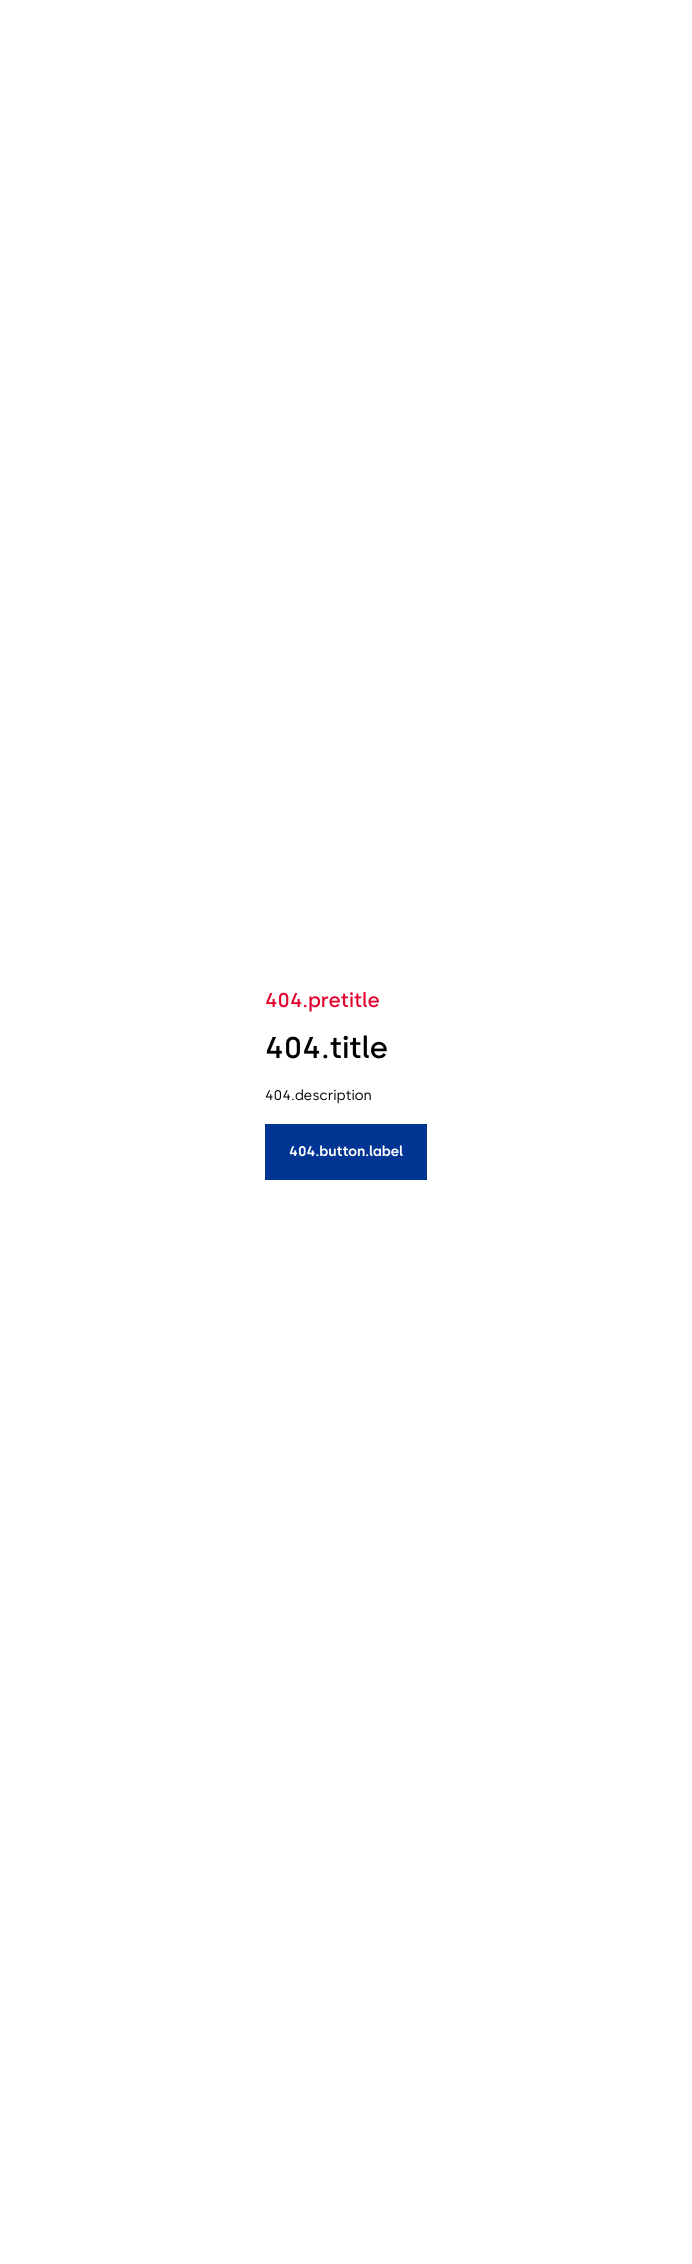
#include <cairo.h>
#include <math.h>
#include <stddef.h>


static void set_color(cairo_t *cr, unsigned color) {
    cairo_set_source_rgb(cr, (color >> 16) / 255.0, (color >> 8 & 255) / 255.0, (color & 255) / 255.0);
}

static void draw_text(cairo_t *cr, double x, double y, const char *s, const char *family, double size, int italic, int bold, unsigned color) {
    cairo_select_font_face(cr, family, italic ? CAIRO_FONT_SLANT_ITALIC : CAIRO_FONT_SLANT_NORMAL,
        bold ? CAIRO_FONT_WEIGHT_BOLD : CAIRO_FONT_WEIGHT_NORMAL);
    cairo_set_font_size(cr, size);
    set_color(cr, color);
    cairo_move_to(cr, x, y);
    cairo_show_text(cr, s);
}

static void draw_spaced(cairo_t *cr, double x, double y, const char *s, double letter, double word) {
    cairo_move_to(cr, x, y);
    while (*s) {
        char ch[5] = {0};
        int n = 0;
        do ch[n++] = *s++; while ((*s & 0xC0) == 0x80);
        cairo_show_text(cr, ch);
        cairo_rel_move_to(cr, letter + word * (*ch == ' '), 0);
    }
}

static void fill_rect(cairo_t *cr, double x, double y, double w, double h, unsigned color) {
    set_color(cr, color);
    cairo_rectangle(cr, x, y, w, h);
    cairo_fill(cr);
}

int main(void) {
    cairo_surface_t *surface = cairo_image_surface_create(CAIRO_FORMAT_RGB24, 692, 2264);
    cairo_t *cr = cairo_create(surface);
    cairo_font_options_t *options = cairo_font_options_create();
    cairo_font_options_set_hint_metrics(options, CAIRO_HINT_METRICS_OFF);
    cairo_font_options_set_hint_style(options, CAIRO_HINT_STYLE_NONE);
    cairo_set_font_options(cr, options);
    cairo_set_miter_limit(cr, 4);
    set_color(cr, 0xFFFFFF);
    cairo_paint(cr);
    draw_text(cr, 265, 1007, "404.pretitle", "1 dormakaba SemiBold", 20, 0, 0, 0xE4002B);
    draw_text(cr, 265, 1058, "404.title", "1 dormakaba SemiBold", 30, 0, 0, 0x000000);
    cairo_select_font_face(cr, "1 dormakaba", CAIRO_FONT_SLANT_NORMAL, CAIRO_FONT_WEIGHT_NORMAL);
    cairo_set_font_size(cr, 14);
    draw_spaced(cr, 265, 1100, "404.description", 0.1, 0);
    fill_rect(cr, 265, 1124, 162, 56, 0x003594);
    draw_text(cr, 289, 1156, "404.button.label", "1 dormakaba", 14, 0, 1, 0xFFFFFF);
    cairo_surface_write_to_png(surface, "output.png");
    cairo_font_options_destroy(options);
    cairo_destroy(cr);
    cairo_surface_destroy(surface);
    return 0;
}
